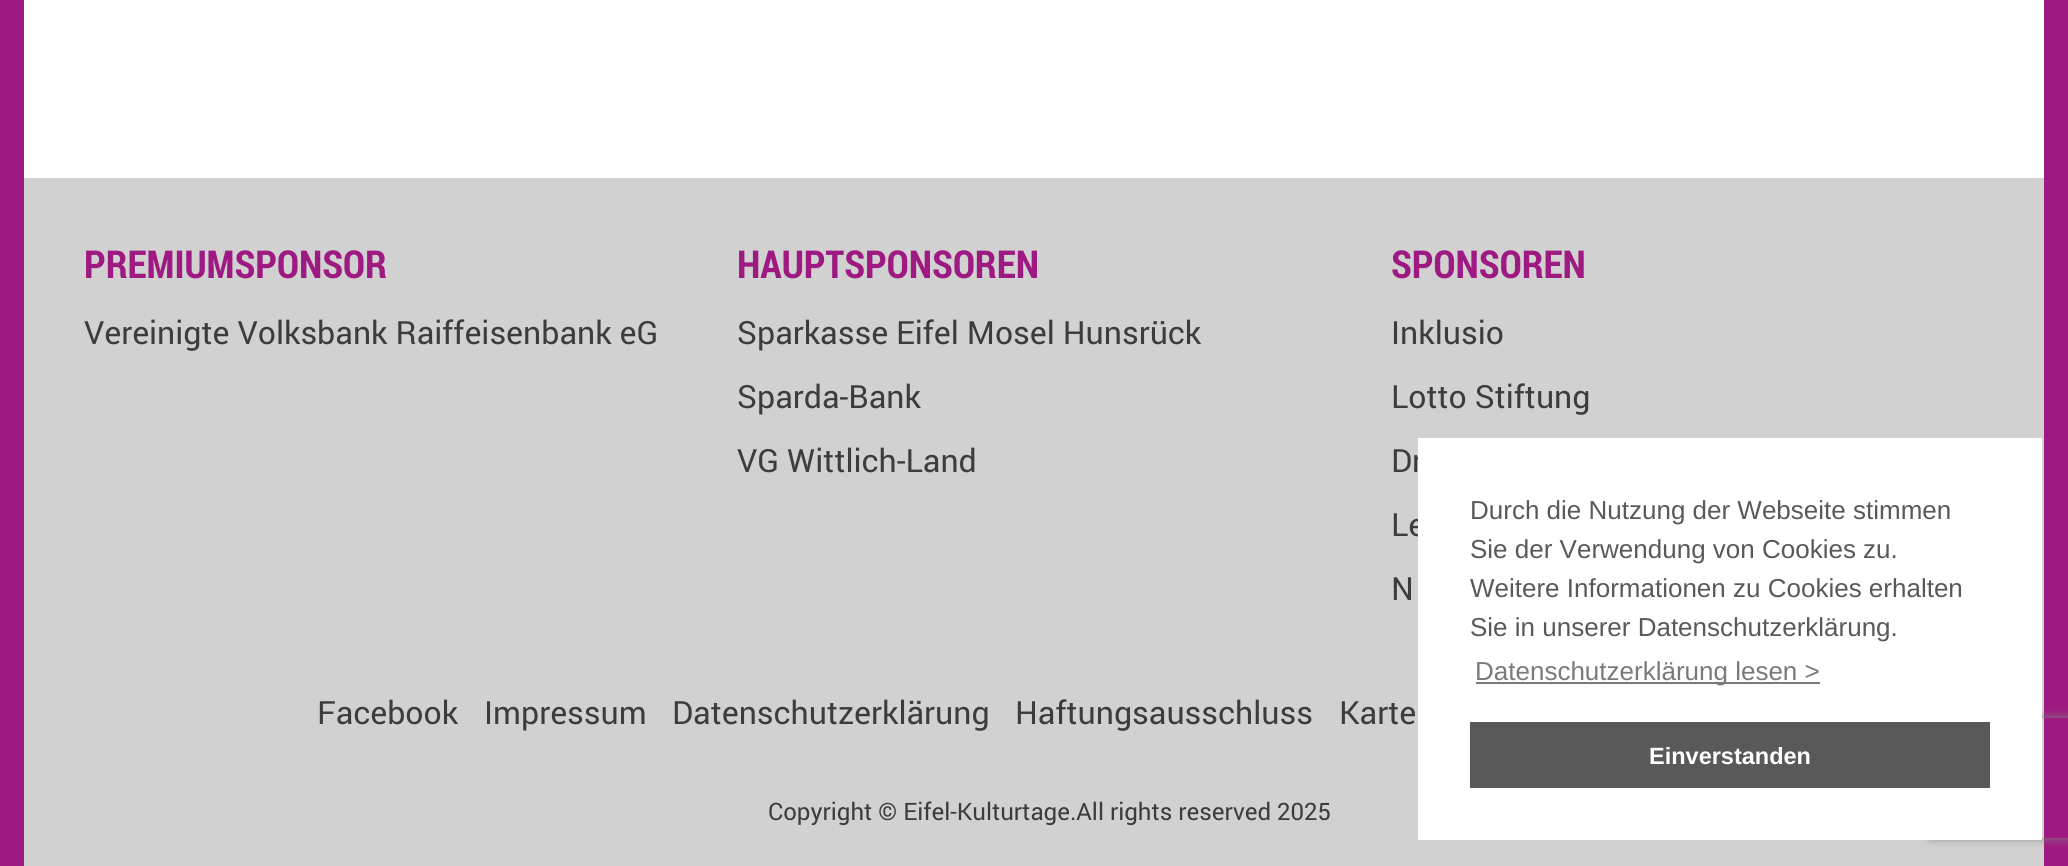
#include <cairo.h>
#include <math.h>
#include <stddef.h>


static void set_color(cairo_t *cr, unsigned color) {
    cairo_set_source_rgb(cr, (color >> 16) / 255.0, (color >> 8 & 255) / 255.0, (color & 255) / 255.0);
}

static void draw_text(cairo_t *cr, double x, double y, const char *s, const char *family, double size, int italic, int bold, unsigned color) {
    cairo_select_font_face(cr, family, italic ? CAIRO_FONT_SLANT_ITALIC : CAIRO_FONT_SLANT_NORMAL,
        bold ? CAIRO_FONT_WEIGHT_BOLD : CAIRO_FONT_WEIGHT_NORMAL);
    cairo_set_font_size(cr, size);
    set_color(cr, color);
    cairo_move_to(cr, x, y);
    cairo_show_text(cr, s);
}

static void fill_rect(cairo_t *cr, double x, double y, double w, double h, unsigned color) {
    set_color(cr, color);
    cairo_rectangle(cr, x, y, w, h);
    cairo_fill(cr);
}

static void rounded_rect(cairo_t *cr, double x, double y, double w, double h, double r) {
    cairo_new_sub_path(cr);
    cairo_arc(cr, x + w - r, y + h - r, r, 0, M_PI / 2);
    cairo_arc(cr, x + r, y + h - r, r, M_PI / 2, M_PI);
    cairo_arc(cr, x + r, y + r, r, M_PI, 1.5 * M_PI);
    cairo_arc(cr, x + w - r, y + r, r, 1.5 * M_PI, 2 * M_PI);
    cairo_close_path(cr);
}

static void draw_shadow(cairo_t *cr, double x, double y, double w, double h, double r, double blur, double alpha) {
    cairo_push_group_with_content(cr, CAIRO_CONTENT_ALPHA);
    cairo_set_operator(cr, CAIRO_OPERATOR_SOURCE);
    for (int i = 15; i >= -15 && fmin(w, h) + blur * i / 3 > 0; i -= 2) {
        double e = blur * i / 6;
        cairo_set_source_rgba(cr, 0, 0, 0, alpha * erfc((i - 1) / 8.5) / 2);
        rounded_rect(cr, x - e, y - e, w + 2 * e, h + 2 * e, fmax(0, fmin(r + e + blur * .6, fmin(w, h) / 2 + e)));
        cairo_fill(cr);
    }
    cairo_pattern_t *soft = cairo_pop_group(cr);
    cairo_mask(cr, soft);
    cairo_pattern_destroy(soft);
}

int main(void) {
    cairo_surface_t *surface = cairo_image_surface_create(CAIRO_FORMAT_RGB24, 2068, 866);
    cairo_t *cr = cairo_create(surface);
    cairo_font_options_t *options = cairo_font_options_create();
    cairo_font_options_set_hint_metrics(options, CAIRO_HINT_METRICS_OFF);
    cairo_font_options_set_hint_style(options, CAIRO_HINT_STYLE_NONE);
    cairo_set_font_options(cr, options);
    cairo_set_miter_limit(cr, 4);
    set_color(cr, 0xFFFFFF);
    cairo_paint(cr);
    fill_rect(cr, 2044, 0, 24, 866, 0x9E1981);
    fill_rect(cr, 0, 0, 24, 866, 0x9E1981);
    fill_rect(cr, 24, 178, 2020, 688, 0xD1D1D1);
    draw_text(cr, 84, 278, "PREMIUMSPONSOR", "Roboto Condensed", 38.5, 0, 1, 0x9E1981);
    draw_text(cr, 84, 344, "Vereinigte Volksbank Raiffeisenbank eG", "Roboto", 32, 0, 0, 0x3C3C3C);
    draw_text(cr, 737, 278, "HAUPTSPONSOREN", "Roboto Condensed", 38.5, 0, 1, 0x9E1981);
    draw_text(cr, 737, 344, "Sparkasse Eifel Mosel Hunsrück", "Roboto", 32, 0, 0, 0x3C3C3C);
    draw_text(cr, 737, 408, "Sparda-Bank", "Roboto", 32, 0, 0, 0x3C3C3C);
    draw_text(cr, 737, 472, "VG Wittlich-Land", "Roboto", 32, 0, 0, 0x3C3C3C);
    draw_text(cr, 1391, 278, "SPONSOREN", "Roboto Condensed", 38.5, 0, 1, 0x9E1981);
    draw_text(cr, 1391, 344, "Inklusio", "Roboto", 32, 0, 0, 0x3C3C3C);
    draw_text(cr, 1391, 408, "Lotto Stiftung", "Roboto", 32, 0, 0, 0x3C3C3C);
    draw_text(cr, 1391, 472, "Dr", "Roboto", 32, 0, 0, 0x3C3C3C);
    draw_text(cr, 1391, 536, "Le", "Roboto", 32, 0, 0, 0x3C3C3C);
    draw_text(cr, 1391, 600, "N", "Roboto", 32, 0, 0, 0x3C3C3C);
    draw_text(cr, 317, 724, "Facebook", "Roboto", 32, 0, 0, 0x3C3C3C);
    draw_text(cr, 484, 724, "Impressum", "Roboto", 32, 0, 0, 0x3C3C3C);
    draw_text(cr, 672, 724, "Datenschutzerklärung", "Roboto", 32, 0, 0, 0x3C3C3C);
    draw_text(cr, 1015, 724, "Haftungsausschluss", "Roboto", 32, 0, 0, 0x3C3C3C);
    draw_text(cr, 1339, 724, "Karte", "Roboto", 32, 0, 0, 0x3C3C3C);
    draw_text(cr, 768, 820, "Copyright © Eifel-Kulturtage.All rights reserved 2025", "Roboto", 24, 0, 0, 0x3C3C3C);
    cairo_save(cr);
    cairo_set_fill_rule(cr, CAIRO_FILL_RULE_EVEN_ODD);
    cairo_new_path(cr);
    cairo_move_to(cr, 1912, 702);
    cairo_line_to(cr, 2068, 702);
    cairo_line_to(cr, 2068, 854);
    cairo_line_to(cr, 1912, 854);
    cairo_close_path(cr);
    cairo_move_to(cr, 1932, 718);
    cairo_line_to(cr, 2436, 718);
    cairo_curve_to(cr, 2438, 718, 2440, 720, 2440, 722);
    cairo_line_to(cr, 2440, 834);
    cairo_curve_to(cr, 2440, 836, 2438, 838, 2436, 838);
    cairo_line_to(cr, 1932, 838);
    cairo_curve_to(cr, 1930, 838, 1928, 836, 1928, 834);
    cairo_line_to(cr, 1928, 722);
    cairo_curve_to(cr, 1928, 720, 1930, 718, 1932, 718);
    cairo_close_path(cr);
    cairo_clip(cr);
    set_color(cr, 0x808080);
    draw_shadow(cr, 1928, 718, 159, 120, 4, 5, 1);
    cairo_restore(cr);
    fill_rect(cr, 1418, 438, 624, 402, 0xFFFFFF);
    draw_text(cr, 1470, 519, "Durch die Nutzung der Webseite stimmen", "Liberation Sans", 26, 0, 0, 0x595959);
    draw_text(cr, 1470, 558, "Sie der Verwendung von Cookies zu.", "Liberation Sans", 26, 0, 0, 0x595959);
    draw_text(cr, 1470, 597, "Weitere Informationen zu Cookies erhalten", "Liberation Sans", 26, 0, 0, 0x595959);
    draw_text(cr, 1470, 636, "Sie in unserer Datenschutzerklärung.", "Liberation Sans", 26, 0, 0, 0x595959);
    fill_rect(cr, 1476, 682, 344, 2, 0x7A7A7A);
    draw_text(cr, 1475, 680, "Datenschutzerklärung lesen >", "Liberation Sans", 26, 0, 0, 0x7A7A7A);
    fill_rect(cr, 1470, 722, 520, 66, 0x595959);
    draw_text(cr, 1649, 764, "Einverstanden", "Liberation Sans", 23.5, 0, 1, 0xFFFFFF);
    cairo_surface_write_to_png(surface, "output.png");
    cairo_font_options_destroy(options);
    cairo_destroy(cr);
    cairo_surface_destroy(surface);
    return 0;
}
